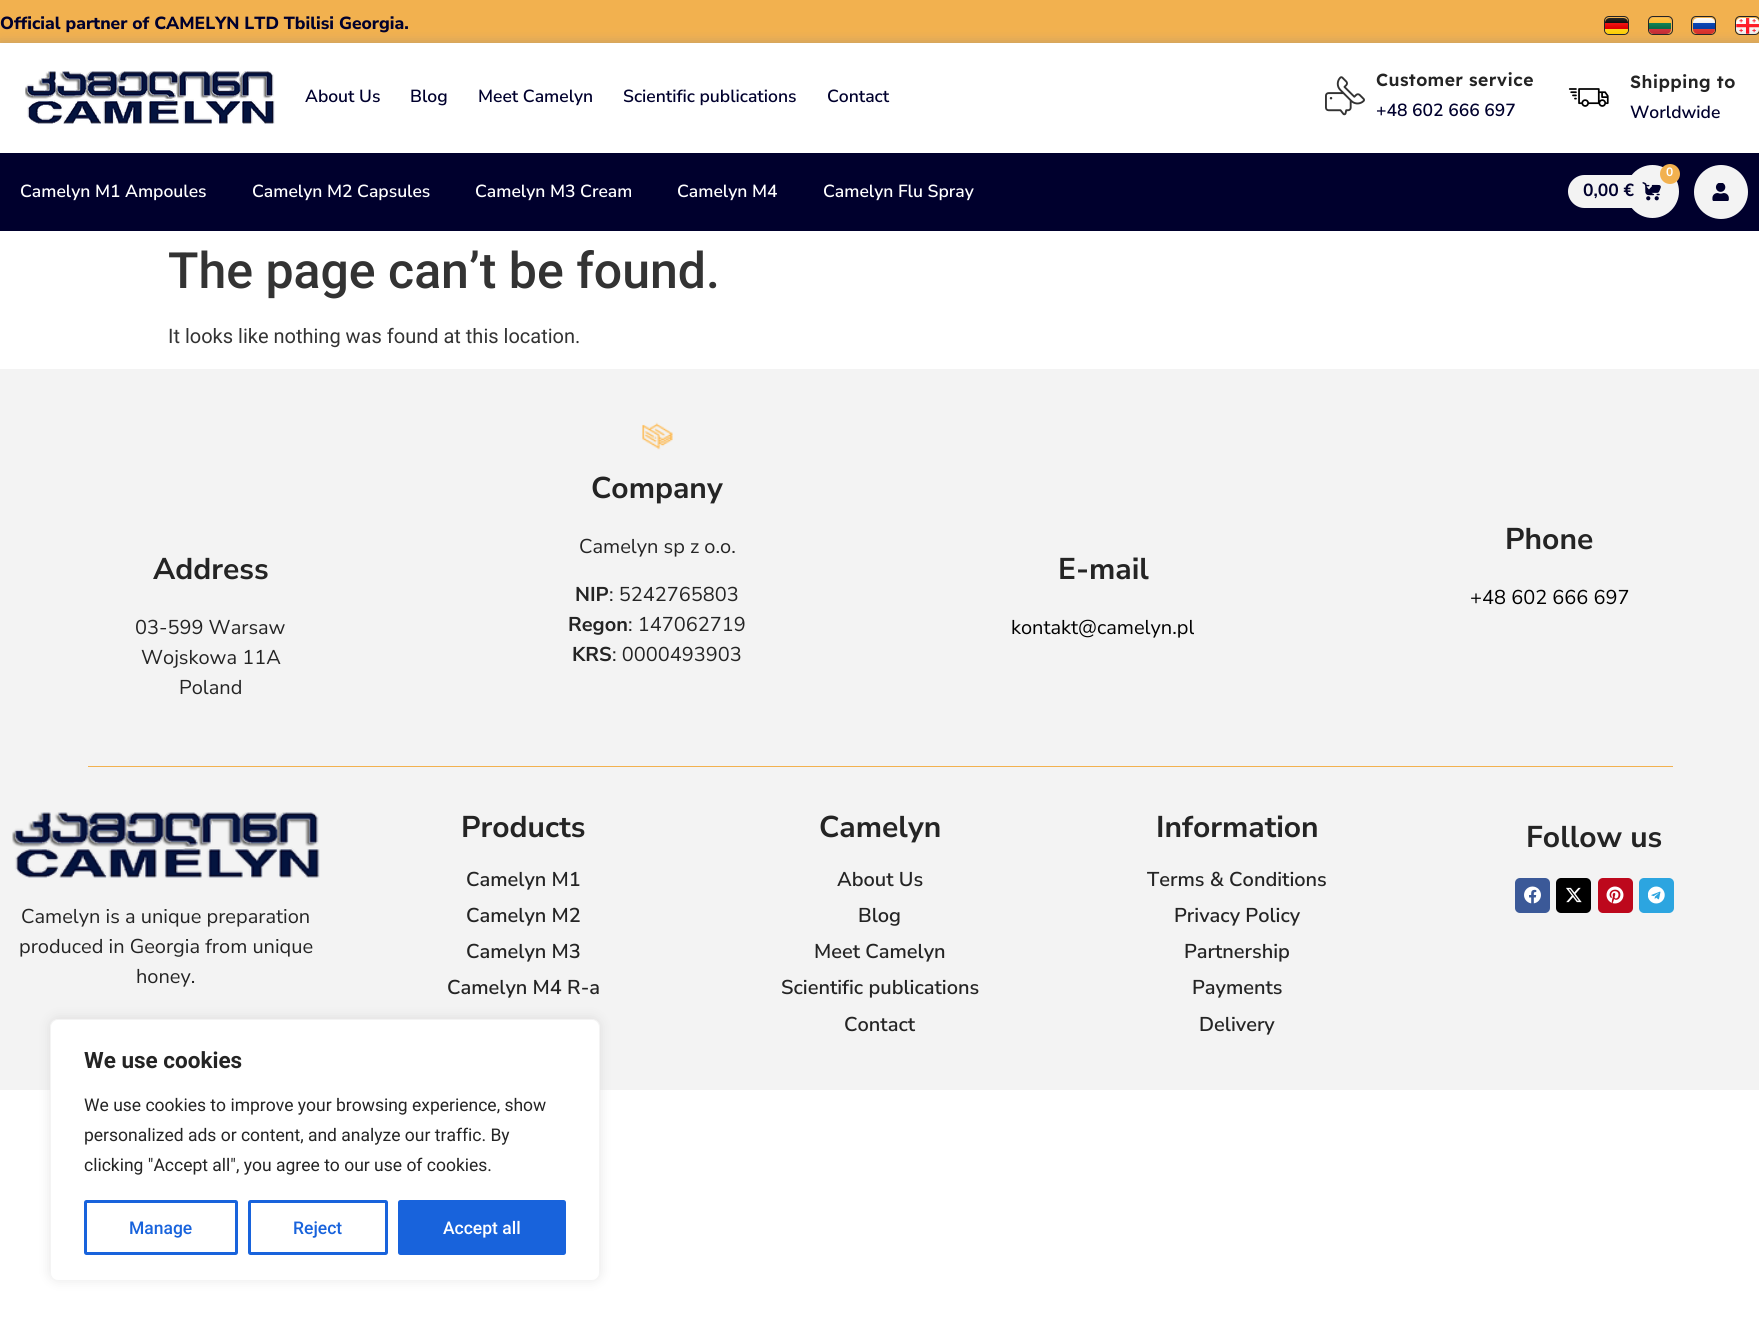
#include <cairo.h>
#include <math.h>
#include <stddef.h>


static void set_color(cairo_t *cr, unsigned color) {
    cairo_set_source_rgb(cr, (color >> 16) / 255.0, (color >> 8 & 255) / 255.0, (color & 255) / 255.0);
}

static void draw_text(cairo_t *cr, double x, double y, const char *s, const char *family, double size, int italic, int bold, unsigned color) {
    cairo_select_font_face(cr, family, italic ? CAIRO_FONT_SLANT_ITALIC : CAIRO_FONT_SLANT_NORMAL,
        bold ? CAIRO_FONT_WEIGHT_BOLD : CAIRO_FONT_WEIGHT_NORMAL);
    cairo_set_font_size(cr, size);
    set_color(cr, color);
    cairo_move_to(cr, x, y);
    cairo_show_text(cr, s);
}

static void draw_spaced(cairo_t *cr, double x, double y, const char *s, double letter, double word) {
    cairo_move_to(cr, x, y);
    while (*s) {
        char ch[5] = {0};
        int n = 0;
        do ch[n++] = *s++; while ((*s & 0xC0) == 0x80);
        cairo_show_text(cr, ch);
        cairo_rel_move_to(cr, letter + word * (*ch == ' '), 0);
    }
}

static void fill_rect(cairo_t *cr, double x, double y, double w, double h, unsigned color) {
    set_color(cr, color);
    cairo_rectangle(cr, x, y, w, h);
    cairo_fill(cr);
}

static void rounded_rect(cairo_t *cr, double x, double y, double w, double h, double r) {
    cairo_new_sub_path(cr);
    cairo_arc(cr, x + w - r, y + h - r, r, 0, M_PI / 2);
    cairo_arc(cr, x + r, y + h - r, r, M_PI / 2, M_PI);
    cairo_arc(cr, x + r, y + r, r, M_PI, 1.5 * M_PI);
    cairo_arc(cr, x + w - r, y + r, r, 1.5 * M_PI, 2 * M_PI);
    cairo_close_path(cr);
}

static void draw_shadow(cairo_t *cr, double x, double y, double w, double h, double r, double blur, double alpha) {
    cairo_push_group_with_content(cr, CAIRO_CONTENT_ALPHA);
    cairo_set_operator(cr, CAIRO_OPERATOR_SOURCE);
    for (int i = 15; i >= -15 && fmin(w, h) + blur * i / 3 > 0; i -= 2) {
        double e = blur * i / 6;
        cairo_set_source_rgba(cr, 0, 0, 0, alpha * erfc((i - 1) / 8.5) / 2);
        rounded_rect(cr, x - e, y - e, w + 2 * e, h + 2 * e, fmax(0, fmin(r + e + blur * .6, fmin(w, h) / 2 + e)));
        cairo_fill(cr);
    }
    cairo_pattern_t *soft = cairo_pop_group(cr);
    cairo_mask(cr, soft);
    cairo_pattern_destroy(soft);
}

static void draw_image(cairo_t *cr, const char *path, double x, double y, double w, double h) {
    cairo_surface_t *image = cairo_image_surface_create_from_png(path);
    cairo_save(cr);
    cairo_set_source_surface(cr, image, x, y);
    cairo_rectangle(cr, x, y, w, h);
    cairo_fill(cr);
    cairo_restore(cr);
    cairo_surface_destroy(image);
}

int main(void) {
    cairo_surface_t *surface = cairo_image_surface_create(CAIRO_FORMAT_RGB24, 1759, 1331);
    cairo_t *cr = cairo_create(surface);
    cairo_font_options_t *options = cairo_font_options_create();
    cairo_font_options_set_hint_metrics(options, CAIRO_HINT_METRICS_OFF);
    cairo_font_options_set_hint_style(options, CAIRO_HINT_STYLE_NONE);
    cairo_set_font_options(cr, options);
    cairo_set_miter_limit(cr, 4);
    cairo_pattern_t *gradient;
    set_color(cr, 0xFFFFFF);
    cairo_paint(cr);
    fill_rect(cr, 0, 0, 1759, 43, 0xF2B14F);
    draw_text(cr, 0, 29, "Official partner of CAMELYN LTD Tbilisi Georgia.", "Nunito Sans ExtraBold", 17.5, 0, 0, 0x00002D);
    rounded_rect(cr, 1604.5, 16.5, 24, 18, 4.5);
    set_color(cr, 0x242424);
    cairo_set_line_width(cr, 1);
    cairo_stroke(cr);
    gradient = cairo_pattern_create_linear(1616, 18, 1616, 23);
    cairo_pattern_add_color_stop_rgba(gradient, 0, 0.149, 0.149, 0.149, 1);
    cairo_pattern_add_color_stop_rgba(gradient, 1, 0.051, 0.051, 0.051, 1);
    cairo_set_source(cr, gradient);
    cairo_pattern_destroy(gradient);
    cairo_new_path(cr);
    cairo_move_to(cr, 1610, 18);
    cairo_line_to(cr, 1623, 18);
    cairo_curve_to(cr, 1626, 18, 1628, 20, 1628, 23);
    cairo_line_to(cr, 1605, 23);
    cairo_curve_to(cr, 1605, 20, 1607, 18, 1610, 18);
    cairo_close_path(cr);
    cairo_fill(cr);
    gradient = cairo_pattern_create_linear(1616, 23, 1616, 28);
    cairo_pattern_add_color_stop_rgba(gradient, 0, 0.941, 0.082, 0.082, 1);
    cairo_pattern_add_color_stop_rgba(gradient, 1, 0.871, 0, 0, 1);
    cairo_set_source(cr, gradient);
    cairo_pattern_destroy(gradient);
    cairo_rectangle(cr, 1605, 23, 23, 6);
    cairo_fill(cr);
    gradient = cairo_pattern_create_linear(1616, 28, 1616, 34);
    cairo_pattern_add_color_stop_rgba(gradient, 0, 1, 0.835, 0.129, 1);
    cairo_pattern_add_color_stop_rgba(gradient, 1, 1, 0.812, 0, 1);
    cairo_set_source(cr, gradient);
    cairo_pattern_destroy(gradient);
    cairo_new_path(cr);
    cairo_move_to(cr, 1605, 29);
    cairo_line_to(cr, 1628, 29);
    cairo_curve_to(cr, 1628, 32, 1626, 34, 1623, 34);
    cairo_line_to(cr, 1610, 34);
    cairo_curve_to(cr, 1607, 34, 1605, 32, 1605, 29);
    cairo_close_path(cr);
    cairo_fill(cr);
    rounded_rect(cr, 1648.5, 16.5, 24, 18, 4.5);
    set_color(cr, 0x242424);
    cairo_stroke(cr);
    gradient = cairo_pattern_create_linear(1660, 18, 1660, 23);
    cairo_pattern_add_color_stop_rgba(gradient, 0, 0.996, 0.765, 0.294, 1);
    cairo_pattern_add_color_stop_rgba(gradient, 1, 0.988, 0.725, 0.192, 1);
    cairo_set_source(cr, gradient);
    cairo_pattern_destroy(gradient);
    cairo_new_path(cr);
    cairo_move_to(cr, 1654, 18);
    cairo_line_to(cr, 1666, 18);
    cairo_curve_to(cr, 1669, 18, 1671, 20, 1671, 23);
    cairo_line_to(cr, 1649, 23);
    cairo_curve_to(cr, 1649, 20, 1651, 18, 1654, 18);
    cairo_close_path(cr);
    cairo_fill(cr);
    gradient = cairo_pattern_create_linear(1660, 23, 1660, 28);
    cairo_pattern_add_color_stop_rgba(gradient, 0, 0.067, 0.514, 0.341, 1);
    cairo_pattern_add_color_stop_rgba(gradient, 1, 0.043, 0.416, 0.271, 1);
    cairo_set_source(cr, gradient);
    cairo_pattern_destroy(gradient);
    cairo_rectangle(cr, 1649, 23, 22, 6);
    cairo_fill(cr);
    gradient = cairo_pattern_create_linear(1660, 28, 1660, 34);
    cairo_pattern_add_color_stop_rgba(gradient, 0, 0.847, 0.204, 0.239, 1);
    cairo_pattern_add_color_stop_rgba(gradient, 1, 0.753, 0.165, 0.196, 1);
    cairo_set_source(cr, gradient);
    cairo_pattern_destroy(gradient);
    cairo_new_path(cr);
    cairo_move_to(cr, 1649, 29);
    cairo_line_to(cr, 1671, 29);
    cairo_curve_to(cr, 1671, 32, 1669, 34, 1666, 34);
    cairo_line_to(cr, 1654, 34);
    cairo_curve_to(cr, 1651, 34, 1649, 32, 1649, 29);
    cairo_close_path(cr);
    cairo_fill(cr);
    rounded_rect(cr, 1691.5, 16.5, 24, 18, 4.5);
    set_color(cr, 0x242424);
    cairo_stroke(cr);
    gradient = cairo_pattern_create_linear(1704, 18, 1704, 23);
    cairo_pattern_add_color_stop_rgba(gradient, 0, 1, 1, 1, 1);
    cairo_pattern_add_color_stop_rgba(gradient, 1, 0.941, 0.941, 0.941, 1);
    cairo_set_source(cr, gradient);
    cairo_pattern_destroy(gradient);
    cairo_new_path(cr);
    cairo_move_to(cr, 1698, 18);
    cairo_line_to(cr, 1710, 18);
    cairo_curve_to(cr, 1713, 18, 1715, 20, 1715, 23);
    cairo_line_to(cr, 1693, 23);
    cairo_curve_to(cr, 1693, 20, 1695, 18, 1698, 18);
    cairo_close_path(cr);
    cairo_fill(cr);
    gradient = cairo_pattern_create_linear(1704, 23, 1704, 28);
    cairo_pattern_add_color_stop_rgba(gradient, 0, 0.047, 0.278, 0.718, 1);
    cairo_pattern_add_color_stop_rgba(gradient, 1, 0.027, 0.239, 0.643, 1);
    cairo_set_source(cr, gradient);
    cairo_pattern_destroy(gradient);
    cairo_rectangle(cr, 1693, 23, 22, 6);
    cairo_fill(cr);
    gradient = cairo_pattern_create_linear(1704, 28, 1704, 34);
    cairo_pattern_add_color_stop_rgba(gradient, 0, 0.898, 0.231, 0.208, 1);
    cairo_pattern_add_color_stop_rgba(gradient, 1, 0.827, 0.18, 0.157, 1);
    cairo_set_source(cr, gradient);
    cairo_pattern_destroy(gradient);
    cairo_new_path(cr);
    cairo_move_to(cr, 1693, 29);
    cairo_line_to(cr, 1715, 29);
    cairo_curve_to(cr, 1715, 32, 1713, 34, 1710, 34);
    cairo_line_to(cr, 1698, 34);
    cairo_curve_to(cr, 1695, 34, 1693, 32, 1693, 29);
    cairo_close_path(cr);
    cairo_fill(cr);
    rounded_rect(cr, 1735.5, 16.5, 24, 18, 4.5);
    set_color(cr, 0x242424);
    cairo_stroke(cr);
    draw_image(cr, "assets/img1.png", 1736, 18, 23, 16);
    set_color(cr, 0x888888);
    draw_shadow(cr, 0, 43, 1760, 110, 0, 6, 0.5);
    fill_rect(cr, 0, 43, 1759, 110, 0xFFFFFF);
    draw_image(cr, "assets/img2.png", 25, 71, 250, 53);
    draw_text(cr, 305, 102, "About Us", "Nunito Sans SemiBold", 17.5, 0, 0, 0x00002D);
    draw_text(cr, 410, 102, "Blog", "Nunito Sans SemiBold", 17.5, 0, 0, 0x00002D);
    draw_text(cr, 478, 102, "Meet Camelyn", "Nunito Sans SemiBold", 17.5, 0, 0, 0x00002D);
    draw_text(cr, 623, 102, "Scientific publications", "Nunito Sans SemiBold", 17.5, 0, 0, 0x00002D);
    draw_text(cr, 827, 102, "Contact", "Nunito Sans SemiBold", 17.5, 0, 0, 0x00002D);
    draw_image(cr, "assets/img3.png", 1325, 76, 40, 40);
    cairo_select_font_face(cr, "Lexend Deca SemiBold", CAIRO_FONT_SLANT_NORMAL, CAIRO_FONT_WEIGHT_NORMAL);
    set_color(cr, 0x242424);
    draw_spaced(cr, 1376, 86, "Customer service", 0.4, 0);
    draw_text(cr, 1376, 116, "+48 602 666 697", "Nunito Sans SemiBold", 17.5, 0, 0, 0x00002D);
    draw_image(cr, "assets/img4.png", 1568, 88, 41, 19);
    cairo_select_font_face(cr, "Lexend Deca SemiBold", CAIRO_FONT_SLANT_NORMAL, CAIRO_FONT_WEIGHT_NORMAL);
    set_color(cr, 0x242424);
    draw_spaced(cr, 1630, 88, "Shipping to", 0.4, 0);
    draw_text(cr, 1630, 118, "Worldwide", "Nunito Sans SemiBold", 17.5, 0, 0, 0x00002D);
    fill_rect(cr, 0, 153, 1759, 78, 0x00002D);
    draw_text(cr, 20, 197, "Camelyn M1 Ampoules", "Nunito Sans SemiBold", 17.5, 0, 0, 0xFFFFFF);
    draw_text(cr, 252, 197, "Camelyn M2 Capsules", "Nunito Sans SemiBold", 17.5, 0, 0, 0xFFFFFF);
    draw_text(cr, 475, 197, "Camelyn M3 Cream", "Nunito Sans SemiBold", 17.5, 0, 0, 0xFFFFFF);
    draw_text(cr, 677, 197, "Camelyn M4", "Nunito Sans SemiBold", 17.5, 0, 0, 0xFFFFFF);
    draw_text(cr, 823, 197, "Camelyn Flu Spray", "Nunito Sans SemiBold", 17.5, 0, 0, 0xFFFFFF);
    set_color(cr, 0xF3F3F3);
    cairo_new_path(cr);
    cairo_arc(cr, 1652.5, 191.5, 26.5, 0, 2 * M_PI);
    cairo_fill(cr);
    draw_image(cr, "assets/img5.png", 1642, 182, 19, 19);
    set_color(cr, 0xF2B14F);
    cairo_arc(cr, 1670, 174, 10, 0, 2 * M_PI);
    cairo_fill(cr);
    draw_text(cr, 1666, 176, "0", "Nunito Sans", 12, 0, 1, 0xFFFFFF);
    set_color(cr, 0xF3F3F3);
    cairo_new_path(cr);
    cairo_move_to(cr, 1584.5, 175);
    cairo_line_to(cr, 1634, 175);
    cairo_line_to(cr, 1634, 208);
    cairo_line_to(cr, 1584.5, 208);
    cairo_curve_to(cr, 1575.5, 208, 1568, 200.5, 1568, 191.5);
    cairo_curve_to(cr, 1568, 182.5, 1575.5, 175, 1584.5, 175);
    cairo_close_path(cr);
    cairo_fill(cr);
    draw_text(cr, 1583, 196, "0,00 €", "Nunito Sans", 17.5, 0, 1, 0x00002D);
    set_color(cr, 0xF3F3F3);
    cairo_new_path(cr);
    cairo_arc(cr, 1721, 192, 27, 0, 2 * M_PI);
    cairo_fill(cr);
    draw_image(cr, "assets/img6.png", 1712, 183, 17, 18);
    draw_text(cr, 168, 288, "The page can’t be found.", "Roboto Medium", 50, 0, 0, 0x333333);
    draw_text(cr, 168, 343, "It looks like nothing was found at this location.", "Roboto", 20, 0, 0, 0x333333);
    fill_rect(cr, 0, 369, 1759, 721, 0xF3F3F3);
    draw_text(cr, 153, 579, "Address", "Nunito Sans", 30, 0, 1, 0x242424);
    draw_text(cr, 135, 634, "03-599 Warsaw", "Nunito Sans", 20, 0, 0, 0x242424);
    draw_text(cr, 141, 664, "Wojskowa 11A", "Nunito Sans", 20, 0, 0, 0x242424);
    draw_text(cr, 179, 694, "Poland", "Nunito Sans", 20, 0, 0, 0x242424);
    draw_image(cr, "assets/img7.png", 642, 422, 31, 28);
    draw_text(cr, 591, 498, "Company", "Nunito Sans", 30, 0, 1, 0x242424);
    draw_text(cr, 579, 553, "Camelyn sp z o.o.", "Nunito Sans", 20, 0, 0, 0x242424);
    draw_text(cr, 575, 601, "NIP", "Nunito Sans", 20, 0, 1, 0x242424);
    draw_text(cr, 609, 601, ": 5242765803", "Nunito Sans", 20, 0, 0, 0x242424);
    draw_text(cr, 568, 631, "Regon", "Nunito Sans", 20, 0, 1, 0x242424);
    draw_text(cr, 628, 631, ": 147062719", "Nunito Sans", 20, 0, 0, 0x242424);
    draw_text(cr, 572, 661, "KRS", "Nunito Sans", 20, 0, 1, 0x242424);
    draw_text(cr, 612, 661, ": 0000493903", "Nunito Sans", 20, 0, 0, 0x242424);
    draw_text(cr, 1058, 579, "E-mail", "Nunito Sans", 30, 0, 1, 0x242424);
    draw_text(cr, 1011, 634, "kontakt@camelyn.pl", "Nunito Sans", 20, 0, 0, 0x000000);
    draw_text(cr, 1505, 549, "Phone", "Nunito Sans", 30, 0, 1, 0x242424);
    draw_text(cr, 1470, 604, "+48 602 666 697", "Nunito Sans", 20, 0, 0, 0x000000);
    fill_rect(cr, 88, 766, 1585, 1, 0xF2B14F);
    draw_text(cr, 461, 837, "Products", "Nunito Sans", 30, 0, 1, 0x242424);
    draw_text(cr, 466, 886, "Camelyn M1", "Nunito Sans SemiBold", 20, 0, 0, 0x242424);
    draw_text(cr, 466, 922, "Camelyn M2", "Nunito Sans SemiBold", 20, 0, 0, 0x242424);
    draw_text(cr, 466, 958, "Camelyn M3", "Nunito Sans SemiBold", 20, 0, 0, 0x242424);
    draw_text(cr, 447, 994, "Camelyn M4 R-a", "Nunito Sans SemiBold", 20, 0, 0, 0x242424);
    draw_text(cr, 819, 837, "Camelyn", "Nunito Sans", 30, 0, 1, 0x242424);
    draw_text(cr, 837, 886, "About Us", "Nunito Sans SemiBold", 20, 0, 0, 0x242424);
    draw_text(cr, 858, 922, "Blog", "Nunito Sans SemiBold", 20, 0, 0, 0x242424);
    draw_text(cr, 814, 958, "Meet Camelyn", "Nunito Sans SemiBold", 20, 0, 0, 0x242424);
    draw_text(cr, 781, 994, "Scientific publications", "Nunito Sans SemiBold", 20, 0, 0, 0x242424);
    draw_text(cr, 844, 1031, "Contact", "Nunito Sans SemiBold", 20, 0, 0, 0x242424);
    draw_text(cr, 1156, 837, "Information", "Nunito Sans", 30, 0, 1, 0x242424);
    draw_text(cr, 1147, 886, "Terms & Conditions", "Nunito Sans SemiBold", 20, 0, 0, 0x242424);
    draw_text(cr, 1174, 922, "Privacy Policy", "Nunito Sans SemiBold", 20, 0, 0, 0x242424);
    draw_text(cr, 1184, 958, "Partnership", "Nunito Sans SemiBold", 20, 0, 0, 0x242424);
    draw_text(cr, 1192, 994, "Payments", "Nunito Sans SemiBold", 20, 0, 0, 0x242424);
    draw_text(cr, 1199, 1031, "Delivery", "Nunito Sans SemiBold", 20, 0, 0, 0x242424);
    draw_text(cr, 1526, 847, "Follow us", "Nunito Sans", 30, 0, 1, 0x242424);
    set_color(cr, 0x3B5998);
    rounded_rect(cr, 1515, 878, 35, 35, 5);
    cairo_fill(cr);
    draw_image(cr, "assets/img8.png", 1524, 886, 17, 18);
    set_color(cr, 0x000000);
    rounded_rect(cr, 1556, 878, 35, 35, 5);
    cairo_fill(cr);
    draw_image(cr, "assets/img9.png", 1566, 887, 16, 16);
    set_color(cr, 0xBD081C);
    rounded_rect(cr, 1598, 878, 35, 35, 5);
    cairo_fill(cr);
    draw_image(cr, "assets/img10.png", 1606, 886, 18, 18);
    set_color(cr, 0x2CA5E0);
    rounded_rect(cr, 1639, 878, 35, 35, 5);
    cairo_fill(cr);
    draw_image(cr, "assets/img11.png", 1648, 886, 17, 18);
    draw_image(cr, "assets/img12.png", 12, 812, 308, 66);
    draw_text(cr, 21, 923, "Camelyn is a unique preparation", "Nunito Sans", 20, 0, 0, 0x242424);
    draw_text(cr, 19, 953, "produced in Georgia from unique", "Nunito Sans", 20, 0, 0, 0x242424);
    draw_text(cr, 136, 983, "honey.", "Nunito Sans", 20, 0, 0, 0x242424);
    set_color(cr, 0xACABAB);
    draw_shadow(cr, 50, 1018, 550, 262, 8, 6, 0.3);
    set_color(cr, 0xFFFFFF);
    rounded_rect(cr, 50.5, 1019.5, 549, 261, 7.5);
    cairo_fill_preserve(cr);
    set_color(cr, 0xF4F4F4);
    cairo_stroke(cr);
    draw_text(cr, 84, 1068, "We use cookies", "Roboto", 22.5, 0, 1, 0x242424);
    draw_text(cr, 84, 1111, "We use cookies to improve your browsing experience, show", "Roboto", 17.5, 0, 0, 0x242424);
    draw_text(cr, 84, 1141, "personalized ads or content, and analyze our traffic. By", "Roboto", 17.5, 0, 0, 0x242424);
    draw_text(cr, 84, 1171, "clicking \"Accept all\", you agree to our use of cookies.", "Roboto", 17.5, 0, 0, 0x242424);
    rounded_rect(cr, 85.5, 1201.5, 151, 52, 1);
    set_color(cr, 0x1863DC);
    cairo_set_line_width(cr, 3);
    cairo_stroke(cr);
    draw_text(cr, 129, 1234, "Manage", "Roboto Medium", 17.5, 0, 0, 0x1863DC);
    rounded_rect(cr, 249.5, 1201.5, 137, 52, 1);
    cairo_stroke(cr);
    draw_text(cr, 293, 1234, "Reject", "Roboto Medium", 17.5, 0, 0, 0x1863DC);
    rounded_rect(cr, 399.5, 1201.5, 165, 52, 1);
    cairo_fill_preserve(cr);
    cairo_stroke(cr);
    draw_text(cr, 443, 1234, "Accept all", "Roboto Medium", 17.5, 0, 0, 0xFFFFFF);
    cairo_surface_write_to_png(surface, "output.png");
    cairo_font_options_destroy(options);
    cairo_destroy(cr);
    cairo_surface_destroy(surface);
    return 0;
}
